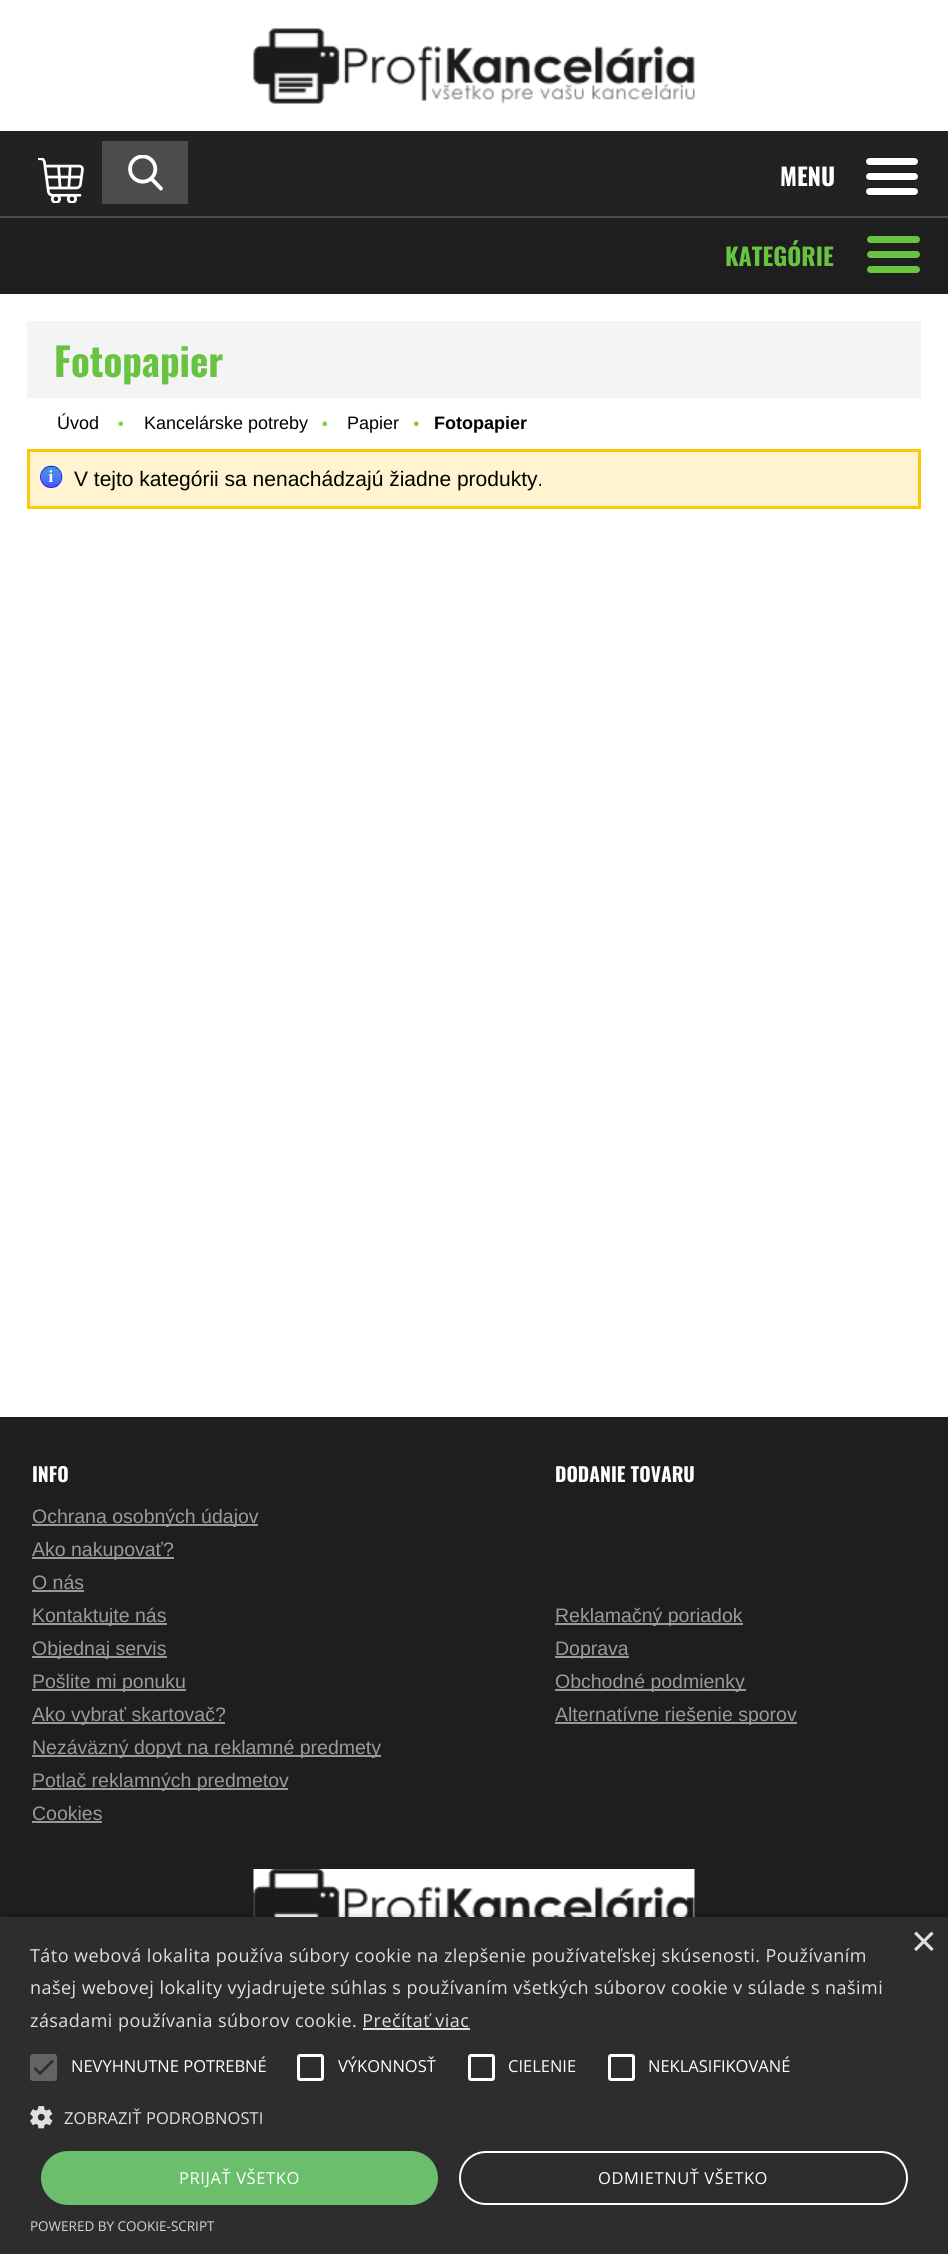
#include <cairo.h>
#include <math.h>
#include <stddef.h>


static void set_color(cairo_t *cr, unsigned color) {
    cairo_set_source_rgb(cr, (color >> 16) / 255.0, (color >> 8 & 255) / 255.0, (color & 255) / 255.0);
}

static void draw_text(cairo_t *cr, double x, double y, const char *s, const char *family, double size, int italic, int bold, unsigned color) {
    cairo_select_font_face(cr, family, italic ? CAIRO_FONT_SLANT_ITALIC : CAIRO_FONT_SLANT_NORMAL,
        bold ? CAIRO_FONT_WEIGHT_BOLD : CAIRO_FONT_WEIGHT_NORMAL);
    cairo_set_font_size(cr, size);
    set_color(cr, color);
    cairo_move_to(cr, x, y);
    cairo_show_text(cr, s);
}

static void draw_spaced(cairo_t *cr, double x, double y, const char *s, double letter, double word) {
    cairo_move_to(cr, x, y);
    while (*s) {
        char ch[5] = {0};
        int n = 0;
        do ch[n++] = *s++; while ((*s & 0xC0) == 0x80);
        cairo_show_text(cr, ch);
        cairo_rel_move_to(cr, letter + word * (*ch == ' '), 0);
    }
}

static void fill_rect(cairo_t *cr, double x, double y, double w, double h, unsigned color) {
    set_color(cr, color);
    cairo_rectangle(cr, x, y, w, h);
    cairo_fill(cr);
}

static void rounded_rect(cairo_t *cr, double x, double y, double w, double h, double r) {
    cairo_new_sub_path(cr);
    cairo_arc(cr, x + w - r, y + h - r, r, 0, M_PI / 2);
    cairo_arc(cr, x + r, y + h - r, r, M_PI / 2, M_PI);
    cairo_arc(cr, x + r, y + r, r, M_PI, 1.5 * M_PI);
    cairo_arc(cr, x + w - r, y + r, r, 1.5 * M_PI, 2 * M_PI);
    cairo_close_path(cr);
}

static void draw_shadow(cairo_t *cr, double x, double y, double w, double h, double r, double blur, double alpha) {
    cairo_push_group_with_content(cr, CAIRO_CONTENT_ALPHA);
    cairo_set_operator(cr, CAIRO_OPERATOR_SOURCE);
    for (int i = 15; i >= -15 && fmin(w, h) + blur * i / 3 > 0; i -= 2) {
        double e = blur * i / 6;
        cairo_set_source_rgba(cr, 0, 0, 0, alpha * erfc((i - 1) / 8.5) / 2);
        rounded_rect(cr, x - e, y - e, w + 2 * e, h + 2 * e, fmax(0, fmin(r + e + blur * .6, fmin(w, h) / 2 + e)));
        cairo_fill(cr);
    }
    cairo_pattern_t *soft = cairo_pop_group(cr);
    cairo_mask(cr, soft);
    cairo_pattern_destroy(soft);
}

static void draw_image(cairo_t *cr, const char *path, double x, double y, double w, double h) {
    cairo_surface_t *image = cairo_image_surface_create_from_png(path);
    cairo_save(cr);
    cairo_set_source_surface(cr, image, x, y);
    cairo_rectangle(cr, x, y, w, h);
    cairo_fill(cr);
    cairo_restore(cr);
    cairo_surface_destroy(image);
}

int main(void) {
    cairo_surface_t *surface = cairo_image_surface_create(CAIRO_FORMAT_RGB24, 948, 2254);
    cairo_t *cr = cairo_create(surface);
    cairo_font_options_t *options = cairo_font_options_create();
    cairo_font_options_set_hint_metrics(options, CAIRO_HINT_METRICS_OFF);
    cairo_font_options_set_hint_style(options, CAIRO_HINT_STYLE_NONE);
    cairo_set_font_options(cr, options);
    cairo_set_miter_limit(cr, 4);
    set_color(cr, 0xFFFFFF);
    cairo_paint(cr);
    draw_image(cr, "assets/img1.png", 253, 28, 442, 76);
    fill_rect(cr, 0, 131, 948, 85, 0x222222);
    fill_rect(cr, 0, 216, 948, 2, 0x4C4C4C);
    draw_image(cr, "assets/img2.png", 38, 158, 46, 45);
    fill_rect(cr, 102, 141, 86, 63, 0x4C4C4C);
    draw_image(cr, "assets/img3.png", 128, 155, 35, 36);
    draw_text(cr, 780, 186, "MENU", "Oswald", 24, 0, 1, 0xFFFFFF);
    set_color(cr, 0x000000);
    draw_shadow(cr, 866, 158, 52, 7, 3.5, 1.5, 0.4);
    set_color(cr, 0xFFFFFF);
    rounded_rect(cr, 866, 158, 52, 7, 3.5);
    cairo_fill(cr);
    set_color(cr, 0x000000);
    draw_shadow(cr, 866, 173, 52, 7, 3.5, 1.5, 0.4);
    set_color(cr, 0xFFFFFF);
    rounded_rect(cr, 866, 173, 52, 7, 3.5);
    cairo_fill(cr);
    set_color(cr, 0x000000);
    draw_shadow(cr, 866, 188, 52, 7, 3.5, 1.5, 0.4);
    set_color(cr, 0xFFFFFF);
    rounded_rect(cr, 866, 188, 52, 7, 3.5);
    cairo_fill(cr);
    fill_rect(cr, 0, 218, 948, 76, 0x1E1E1E);
    draw_text(cr, 725, 266, "KATEGÓRIE", "Oswald", 24, 0, 1, 0x68C440);
    rounded_rect(cr, 867, 236, 53, 7, 3.5);
    cairo_fill(cr);
    rounded_rect(cr, 867, 251, 53, 7, 3.5);
    cairo_fill(cr);
    rounded_rect(cr, 867, 266, 53, 7, 3.5);
    cairo_fill(cr);
    fill_rect(cr, 27, 321, 894, 77, 0xF4F4F4);
    draw_text(cr, 54, 377, "Fotopapier", "Oswald", 39, 0, 1, 0x68C440);
    draw_text(cr, 57, 429, "Úvod", "Liberation Sans", 18, 0, 0, 0x000000);
    draw_image(cr, "assets/img4.png", 118, 421, 5, 5);
    draw_text(cr, 144, 429, "Kancelárske potreby", "Liberation Sans", 18, 0, 0, 0x000000);
    draw_image(cr, "assets/img4.png", 322, 421, 5, 5);
    draw_text(cr, 347, 429, "Papier", "Liberation Sans", 18, 0, 0, 0x000000);
    draw_image(cr, "assets/img5.png", 414, 421, 5, 5);
    draw_text(cr, 434, 429, "Fotopapier", "Liberation Sans", 18, 0, 1, 0x000000);
    fill_rect(cr, 30, 452, 888, 54, 0xFFF4CF);
    draw_image(cr, "assets/img6.png", 40, 465, 23, 23);
    cairo_rectangle(cr, 28.5, 450.5, 891, 57);
    set_color(cr, 0xFFC902);
    cairo_set_line_width(cr, 3);
    cairo_stroke(cr);
    draw_text(cr, 74, 486, "V tejto kategórii sa nenachádzajú žiadne produkty.", "Liberation Sans", 21, 0, 0, 0x000000);
    fill_rect(cr, 0, 1417, 948, 500, 0x1E1E1E);
    draw_text(cr, 32, 1482, "INFO", "Oswald", 19.5, 0, 1, 0xFFFFFF);
    draw_text(cr, 555, 1482, "DODANIE TOVARU", "Oswald", 19.5, 0, 1, 0xFFFFFF);
    fill_rect(cr, 32, 1524, 226, 2, 0x9A9A9A);
    draw_text(cr, 32, 1523, "Ochrana osobných údajov", "Liberation Sans", 19.5, 0, 0, 0x9A9A9A);
    fill_rect(cr, 32, 1557, 142, 2, 0x9A9A9A);
    draw_text(cr, 32, 1556, "Ako nakupovať?", "Liberation Sans", 19.5, 0, 0, 0x9A9A9A);
    draw_text(cr, 32, 1589, "O nás", "Liberation Sans", 19.5, 0, 0, 0x9A9A9A);
    fill_rect(cr, 32, 1590, 52, 2, 0x9A9A9A);
    fill_rect(cr, 32, 1623, 135, 2, 0x9A9A9A);
    draw_text(cr, 32, 1622, "Kontaktujte nás", "Liberation Sans", 19.5, 0, 0, 0x9A9A9A);
    fill_rect(cr, 32, 1656, 135, 2, 0x9A9A9A);
    draw_text(cr, 32, 1655, "Objednaj servis", "Liberation Sans", 19.5, 0, 0, 0x9A9A9A);
    fill_rect(cr, 32, 1689, 154, 2, 0x9A9A9A);
    draw_text(cr, 32, 1688, "Pošlite mi ponuku", "Liberation Sans", 19.5, 0, 0, 0x9A9A9A);
    fill_rect(cr, 32, 1722, 193, 2, 0x9A9A9A);
    draw_text(cr, 32, 1721, "Ako vybrať skartovač?", "Liberation Sans", 19.5, 0, 0, 0x9A9A9A);
    fill_rect(cr, 32, 1755, 349, 2, 0x9A9A9A);
    draw_text(cr, 32, 1754, "Nezáväzný dopyt na reklamné predmety", "Liberation Sans", 19.5, 0, 0, 0x9A9A9A);
    fill_rect(cr, 32, 1788, 256, 2, 0x9A9A9A);
    draw_text(cr, 32, 1787, "Potlač reklamných predmetov", "Liberation Sans", 19.5, 0, 0, 0x9A9A9A);
    draw_text(cr, 32, 1820, "Cookies", "Liberation Sans", 19.5, 0, 0, 0x9A9A9A);
    fill_rect(cr, 32, 1821, 70, 2, 0x9A9A9A);
    fill_rect(cr, 555, 1623, 188, 2, 0x9A9A9A);
    draw_text(cr, 555, 1622, "Reklamačný poriadok", "Liberation Sans", 19.5, 0, 0, 0x9A9A9A);
    fill_rect(cr, 555, 1656, 74, 2, 0x9A9A9A);
    draw_text(cr, 555, 1655, "Doprava", "Liberation Sans", 19.5, 0, 0, 0x9A9A9A);
    fill_rect(cr, 555, 1689, 191, 2, 0x9A9A9A);
    draw_text(cr, 555, 1688, "Obchodné podmienky", "Liberation Sans", 19.5, 0, 0, 0x9A9A9A);
    fill_rect(cr, 555, 1722, 242, 2, 0x9A9A9A);
    draw_text(cr, 555, 1721, "Alternatívne riešenie sporov", "Liberation Sans", 19.5, 0, 0, 0x9A9A9A);
    draw_image(cr, "assets/img7.png", 253, 1869, 442, 48);
    set_color(cr, 0x000000);
    draw_shadow(cr, 2, 1920, 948, 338, 0, 6, 0.35);
    fill_rect(cr, 0, 1917, 948, 337, 0x2D2D2D);
    draw_text(cr, 911, 1956, "×", "Liberation Sans", 44, 0, 0, 0xE0E0E0);
    cairo_select_font_face(cr, "Open Sans", CAIRO_FONT_SLANT_NORMAL, CAIRO_FONT_WEIGHT_NORMAL);
    cairo_set_font_size(cr, 18);
    draw_spaced(cr, 30, 1962, "Táto webová lokalita používa súbory cookie na zlepšenie používateľskej skúsenosti. Používaním", 0.45, 0);
    draw_spaced(cr, 30, 1994, "našej webovej lokality vyjadrujete súhlas s používaním všetkých súborov cookie v súlade s našimi", 0.45, 0);
    draw_spaced(cr, 30, 2027, "zásadami používania súborov cookie. Prečítať viac", 0.45, 0);
    fill_rect(cr, 363, 2028, 107, 2, 0xE0E0E0);
    set_color(cr, 0x646464);
    rounded_rect(cr, 30, 2054, 27, 27, 3);
    cairo_fill(cr);
    cairo_new_path(cr);
    cairo_move_to(cr, 34.5, 2068);
    cairo_line_to(cr, 40, 2073.5);
    cairo_line_to(cr, 53, 2060.5);
    set_color(cr, 0x2D2D2D);
    cairo_set_line_width(cr, 2.7);
    cairo_stroke(cr);
    draw_text(cr, 71, 2072, "NEVYHNUTNE POTREBNÉ", "Open Sans", 16.5, 0, 0, 0xFFFFFF);
    rounded_rect(cr, 298.5, 2055.5, 24, 24, 1.5);
    cairo_set_line_width(cr, 3);
    cairo_stroke(cr);
    draw_text(cr, 338, 2072, "VÝKONNOSŤ", "Open Sans", 16.5, 0, 0, 0xFFFFFF);
    rounded_rect(cr, 469.5, 2055.5, 24, 24, 1.5);
    cairo_stroke(cr);
    draw_text(cr, 508, 2072, "CIELENIE", "Open Sans", 16.5, 0, 0, 0xFFFFFF);
    rounded_rect(cr, 609.5, 2055.5, 24, 24, 1.5);
    cairo_stroke(cr);
    draw_text(cr, 648, 2072, "NEKLASIFIKOVANÉ", "Open Sans", 16.5, 0, 0, 0xFFFFFF);
    draw_image(cr, "assets/img8.png", 30, 2106, 23, 23);
    set_color(cr, 0xE0E0E0);
    draw_spaced(cr, 64, 2124, "ZOBRAZIŤ PODROBNOSTI", 0.1, 0);
    set_color(cr, 0x6BBE6B);
    rounded_rect(cr, 41, 2151, 397, 54, 27);
    cairo_fill(cr);
    set_color(cr, 0xFFFFFF);
    draw_spaced(cr, 179, 2184, "PRIJAŤ VŠETKO", 0.6, 0);
    rounded_rect(cr, 460, 2152, 447, 52, 26);
    cairo_set_line_width(cr, 2);
    cairo_stroke(cr);
    draw_spaced(cr, 598, 2184, "ODMIETNUŤ VŠETKO", 0.6, 0);
    draw_text(cr, 30, 2231, "POWERED BY COOKIE-SCRIPT", "Open Sans", 13.5, 0, 0, 0xD5D5D5);
    cairo_surface_write_to_png(surface, "output.png");
    cairo_font_options_destroy(options);
    cairo_destroy(cr);
    cairo_surface_destroy(surface);
    return 0;
}
